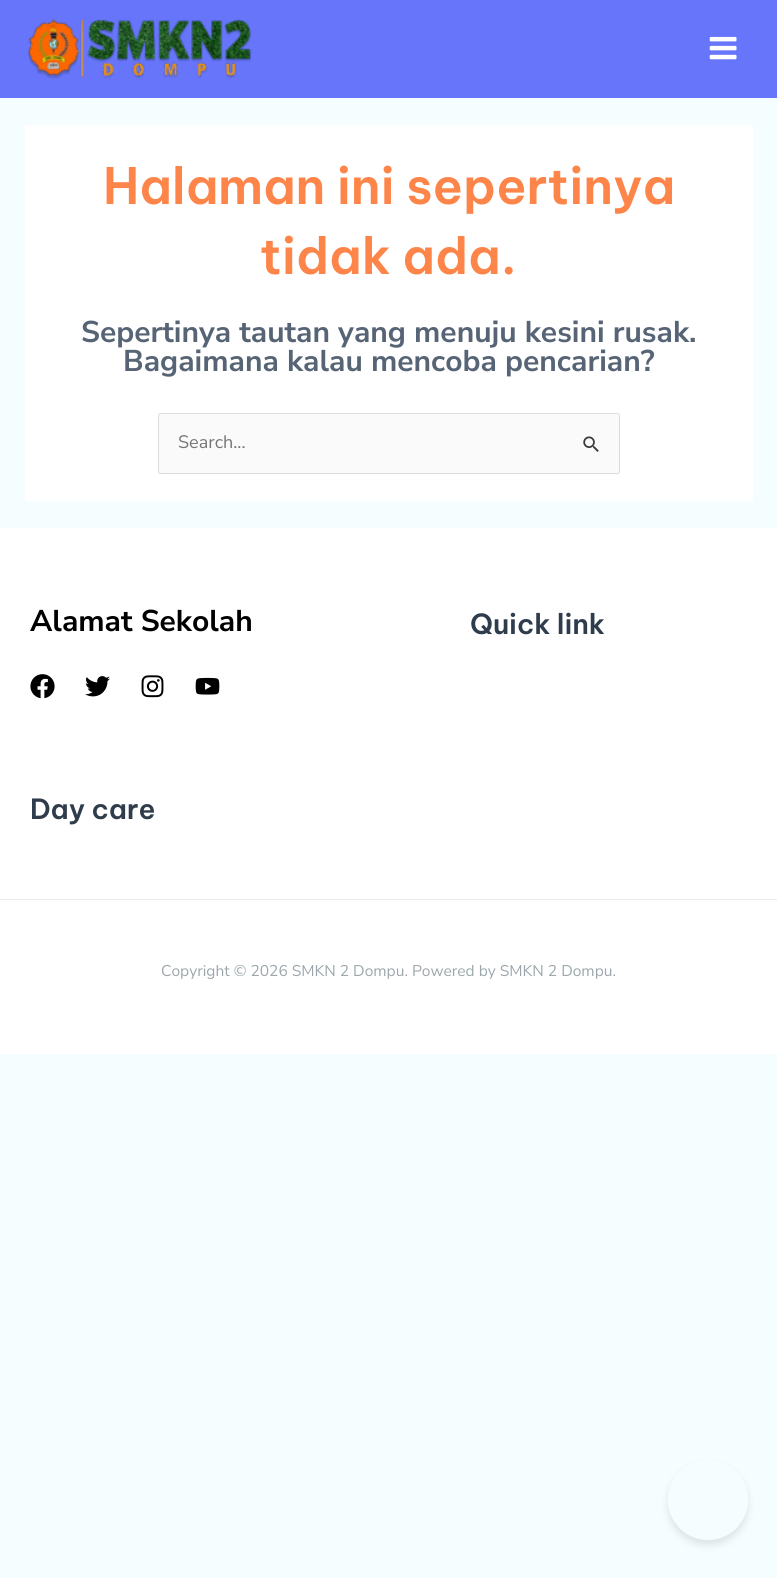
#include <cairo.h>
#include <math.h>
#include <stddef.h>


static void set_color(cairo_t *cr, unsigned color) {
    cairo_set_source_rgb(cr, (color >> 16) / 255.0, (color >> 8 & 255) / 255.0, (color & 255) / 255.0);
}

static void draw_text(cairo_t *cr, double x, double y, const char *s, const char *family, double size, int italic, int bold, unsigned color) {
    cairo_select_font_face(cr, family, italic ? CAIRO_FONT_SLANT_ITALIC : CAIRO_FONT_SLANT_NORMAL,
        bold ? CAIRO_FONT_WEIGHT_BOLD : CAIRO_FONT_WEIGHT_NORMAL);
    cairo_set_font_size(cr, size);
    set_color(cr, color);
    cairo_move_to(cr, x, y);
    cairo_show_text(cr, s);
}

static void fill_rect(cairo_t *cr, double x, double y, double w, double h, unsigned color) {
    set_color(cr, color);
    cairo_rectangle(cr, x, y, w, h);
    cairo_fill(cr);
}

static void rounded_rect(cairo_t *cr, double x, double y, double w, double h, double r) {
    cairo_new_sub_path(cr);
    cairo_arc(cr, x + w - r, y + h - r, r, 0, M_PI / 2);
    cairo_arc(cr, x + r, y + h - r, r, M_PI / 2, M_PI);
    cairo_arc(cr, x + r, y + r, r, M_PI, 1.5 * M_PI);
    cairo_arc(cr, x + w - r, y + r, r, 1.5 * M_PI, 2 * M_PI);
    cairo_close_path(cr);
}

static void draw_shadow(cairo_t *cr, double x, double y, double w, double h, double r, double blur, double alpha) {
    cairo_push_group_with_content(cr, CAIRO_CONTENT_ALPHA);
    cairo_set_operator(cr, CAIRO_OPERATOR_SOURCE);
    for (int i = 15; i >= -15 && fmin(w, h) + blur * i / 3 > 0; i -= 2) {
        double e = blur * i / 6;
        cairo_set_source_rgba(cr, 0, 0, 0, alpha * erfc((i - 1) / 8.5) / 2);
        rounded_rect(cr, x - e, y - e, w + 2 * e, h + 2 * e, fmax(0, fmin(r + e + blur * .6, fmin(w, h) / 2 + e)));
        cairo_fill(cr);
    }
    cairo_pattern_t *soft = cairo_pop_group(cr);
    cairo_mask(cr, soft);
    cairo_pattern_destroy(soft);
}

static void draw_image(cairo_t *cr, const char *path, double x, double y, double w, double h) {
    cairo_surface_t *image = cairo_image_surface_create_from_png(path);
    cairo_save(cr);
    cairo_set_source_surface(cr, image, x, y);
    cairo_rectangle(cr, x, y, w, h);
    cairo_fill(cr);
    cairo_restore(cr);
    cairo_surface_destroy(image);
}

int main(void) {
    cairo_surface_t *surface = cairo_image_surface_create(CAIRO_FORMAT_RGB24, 777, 1578);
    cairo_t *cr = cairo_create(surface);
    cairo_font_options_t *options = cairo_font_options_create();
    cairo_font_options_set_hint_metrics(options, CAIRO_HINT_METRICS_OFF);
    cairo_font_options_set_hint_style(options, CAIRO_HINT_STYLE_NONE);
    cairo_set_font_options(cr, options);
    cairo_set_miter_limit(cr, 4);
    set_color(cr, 0xF6FDFE);
    cairo_paint(cr);
    fill_rect(cr, 0, 0, 777, 98, 0x6675FA);
    draw_image(cr, "assets/img1.png", 27, 18, 225, 61);
    draw_image(cr, "assets/img2.png", 709, 36, 28, 24);
    fill_rect(cr, 25, 125, 728, 376, 0xFFFFFF);
    draw_text(cr, 103, 204, "Halaman ini sepertinya", "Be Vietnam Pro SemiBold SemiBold", 50, 0, 0, 0xFD8549);
    draw_text(cr, 260, 274, "tidak ada.", "Be Vietnam Pro SemiBold SemiBold", 50, 0, 0, 0xFD8549);
    draw_text(cr, 81, 342, "Sepertinya tautan yang menuju kesini rusak.", "Nunito Sans", 30, 0, 1, 0x566476);
    draw_text(cr, 123, 371, "Bagaimana kalau mencoba pencarian?", "Nunito Sans", 30, 0, 1, 0x566476);
    set_color(cr, 0xFAFAFA);
    rounded_rect(cr, 158.5, 413.5, 461, 60, 2);
    cairo_fill_preserve(cr);
    set_color(cr, 0xDDDDDD);
    cairo_set_line_width(cr, 1);
    cairo_stroke(cr);
    draw_text(cr, 178, 448, "Search...", "Nunito Sans", 18, 0, 0, 0x757575);
    draw_image(cr, "assets/img3.png", 583, 436, 16, 16);
    fill_rect(cr, 0, 528, 777, 526, 0xFFFFFF);
    draw_text(cr, 30, 631, "Alamat Sekolah", "Nunito Sans", 30, 0, 1, 0x000000);
    draw_image(cr, "assets/img4.png", 30, 674, 25, 25);
    draw_image(cr, "assets/img5.png", 85, 676, 25, 21);
    draw_image(cr, "assets/img6.png", 141, 675, 23, 23);
    draw_image(cr, "assets/img7.png", 195, 677, 25, 18);
    draw_text(cr, 470, 634, "Quick link", "Be Vietnam Pro SemiBold SemiBold", 27.75, 0, 0, 0x2F3C4C);
    draw_text(cr, 30, 819, "Day care", "Be Vietnam Pro SemiBold SemiBold", 27.75, 0, 0, 0x2F3C4C);
    fill_rect(cr, 0, 899, 777, 1, 0xE9EAEC);
    draw_text(cr, 161, 976, "Copyright © 2026 SMKN 2 Dompu. Powered by SMKN 2 Dompu.", "Nunito Sans", 15.55, 0, 0, 0x9CA7AB);
    cairo_save(cr);
    cairo_set_fill_rule(cr, CAIRO_FILL_RULE_EVEN_ODD);
    cairo_new_path(cr);
    cairo_move_to(cr, 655, 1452);
    cairo_line_to(cr, 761, 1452);
    cairo_line_to(cr, 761, 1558);
    cairo_line_to(cr, 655, 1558);
    cairo_close_path(cr);
    cairo_move_to(cr, 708, 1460);
    cairo_curve_to(cr, 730, 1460, 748, 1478, 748, 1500);
    cairo_curve_to(cr, 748, 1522, 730, 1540, 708, 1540);
    cairo_curve_to(cr, 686, 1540, 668, 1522, 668, 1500);
    cairo_curve_to(cr, 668, 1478, 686, 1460, 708, 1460);
    cairo_close_path(cr);
    cairo_clip(cr);
    set_color(cr, 0x000000);
    draw_shadow(cr, 668, 1465, 80, 80, 40, 4, 0.1);
    cairo_restore(cr);
    cairo_surface_write_to_png(surface, "output.png");
    cairo_font_options_destroy(options);
    cairo_destroy(cr);
    cairo_surface_destroy(surface);
    return 0;
}
